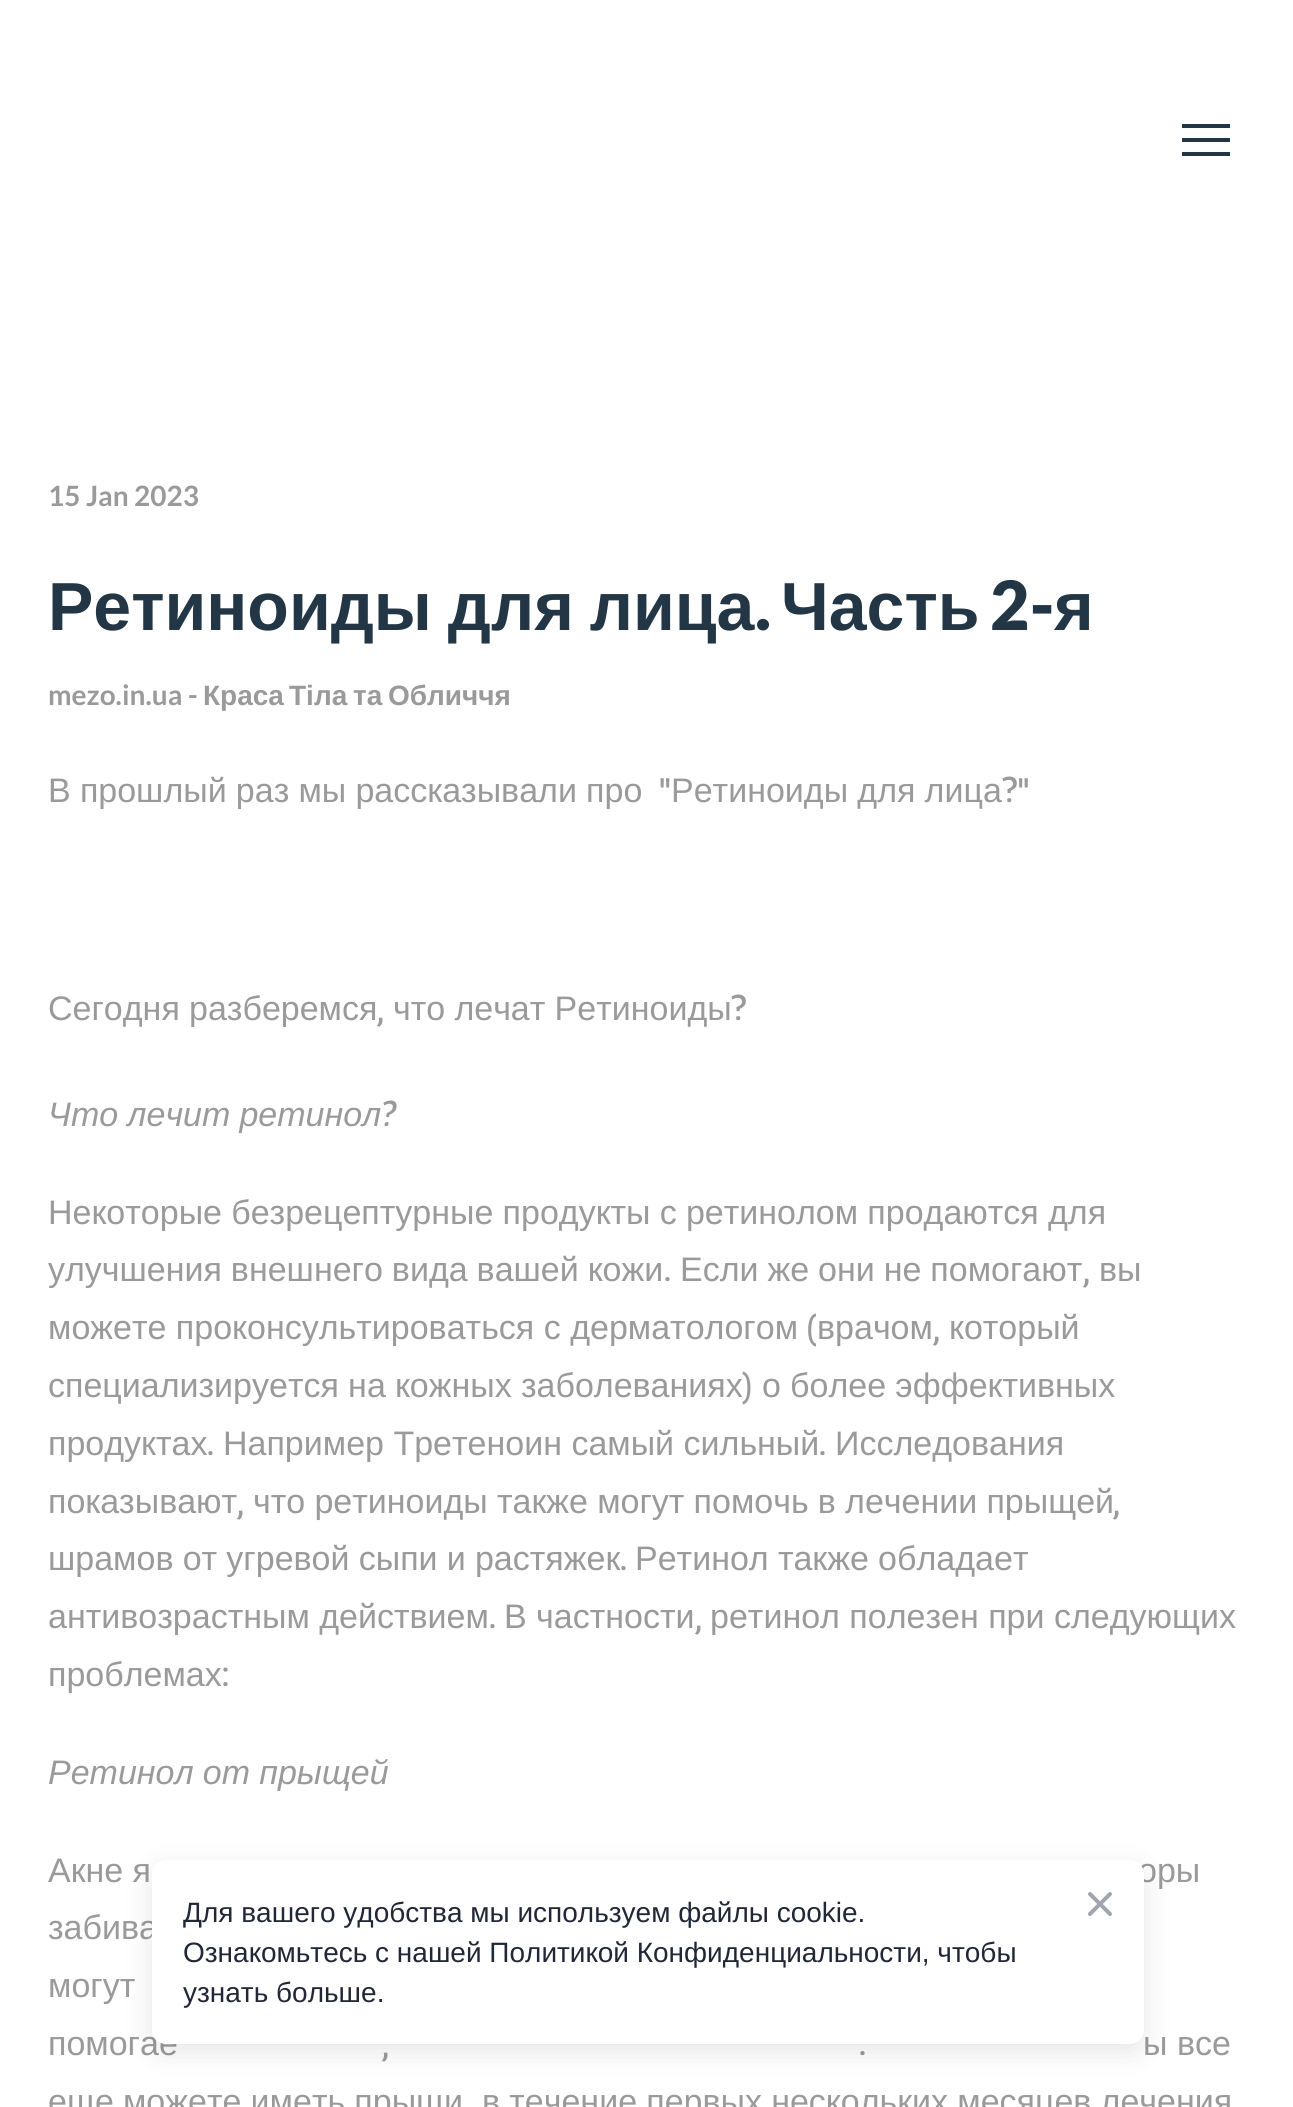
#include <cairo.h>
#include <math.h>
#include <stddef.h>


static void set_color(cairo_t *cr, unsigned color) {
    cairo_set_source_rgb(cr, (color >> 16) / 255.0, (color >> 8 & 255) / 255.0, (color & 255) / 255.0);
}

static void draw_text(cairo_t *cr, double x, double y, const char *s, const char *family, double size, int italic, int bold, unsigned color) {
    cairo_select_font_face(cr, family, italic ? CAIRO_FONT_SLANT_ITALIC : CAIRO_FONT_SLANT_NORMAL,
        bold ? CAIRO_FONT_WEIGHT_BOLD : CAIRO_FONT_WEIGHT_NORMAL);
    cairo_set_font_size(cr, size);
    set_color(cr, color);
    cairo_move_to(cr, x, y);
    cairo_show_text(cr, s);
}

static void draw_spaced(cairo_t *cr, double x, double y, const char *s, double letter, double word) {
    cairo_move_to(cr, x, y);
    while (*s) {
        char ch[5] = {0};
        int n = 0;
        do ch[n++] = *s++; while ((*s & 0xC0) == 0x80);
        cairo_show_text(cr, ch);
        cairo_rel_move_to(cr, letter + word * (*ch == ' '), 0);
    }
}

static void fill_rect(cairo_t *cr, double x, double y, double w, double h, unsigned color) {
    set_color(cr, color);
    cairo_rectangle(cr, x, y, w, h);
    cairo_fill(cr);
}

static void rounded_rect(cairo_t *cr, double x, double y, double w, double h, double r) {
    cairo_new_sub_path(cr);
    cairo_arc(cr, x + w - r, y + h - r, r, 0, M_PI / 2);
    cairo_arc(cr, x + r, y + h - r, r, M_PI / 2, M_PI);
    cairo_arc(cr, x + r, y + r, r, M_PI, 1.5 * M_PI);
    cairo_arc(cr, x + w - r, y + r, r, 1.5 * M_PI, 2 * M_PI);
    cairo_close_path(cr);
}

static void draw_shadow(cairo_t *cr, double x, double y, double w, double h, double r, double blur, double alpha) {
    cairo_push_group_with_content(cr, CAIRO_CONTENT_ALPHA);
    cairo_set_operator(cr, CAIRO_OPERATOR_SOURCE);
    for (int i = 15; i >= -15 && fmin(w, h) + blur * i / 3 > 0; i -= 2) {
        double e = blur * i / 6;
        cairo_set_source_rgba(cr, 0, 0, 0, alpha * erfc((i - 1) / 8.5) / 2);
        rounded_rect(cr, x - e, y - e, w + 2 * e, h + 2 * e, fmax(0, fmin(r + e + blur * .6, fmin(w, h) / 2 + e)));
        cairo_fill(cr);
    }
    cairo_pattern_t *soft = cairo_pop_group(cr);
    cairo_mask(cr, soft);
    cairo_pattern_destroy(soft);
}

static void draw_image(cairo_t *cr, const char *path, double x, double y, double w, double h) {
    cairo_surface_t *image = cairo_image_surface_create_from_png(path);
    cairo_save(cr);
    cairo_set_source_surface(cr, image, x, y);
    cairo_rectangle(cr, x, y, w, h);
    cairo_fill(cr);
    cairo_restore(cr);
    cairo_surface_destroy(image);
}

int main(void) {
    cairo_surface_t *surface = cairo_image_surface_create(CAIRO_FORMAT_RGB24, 1293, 2107);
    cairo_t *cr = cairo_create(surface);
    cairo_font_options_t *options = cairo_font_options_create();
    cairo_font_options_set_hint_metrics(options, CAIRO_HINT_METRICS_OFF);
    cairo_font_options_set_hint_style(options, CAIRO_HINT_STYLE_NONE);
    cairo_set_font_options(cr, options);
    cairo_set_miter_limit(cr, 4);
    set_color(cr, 0xFFFFFF);
    cairo_paint(cr);
    fill_rect(cr, 1182, 124, 48, 4, 0x223645);
    fill_rect(cr, 1182, 138, 48, 4, 0x223645);
    fill_rect(cr, 1182, 152, 48, 4, 0x223645);
    draw_text(cr, 48, 506, "15 Jan 2023", "Lato", 28, 0, 1, 0x9A9A9A);
    cairo_select_font_face(cr, "Liberation Sans", CAIRO_FONT_SLANT_NORMAL, CAIRO_FONT_WEIGHT_BOLD);
    cairo_set_font_size(cr, 68);
    set_color(cr, 0x223645);
    draw_spaced(cr, 48, 630, "Ретиноиды для лица", 0, -3);
    draw_text(cr, 755, 630, ".", "Lato Black", 68, 0, 0, 0x223645);
    draw_text(cr, 781, 630, "Часть", "Liberation Sans", 68, 0, 1, 0x223645);
    draw_text(cr, 990, 630, "2-", "Lato Black", 68, 0, 0, 0x223645);
    draw_text(cr, 1054, 630, "я", "Liberation Sans", 68, 0, 1, 0x223645);
    draw_text(cr, 48, 705, "mezo.in.ua -", "Lato", 28, 0, 1, 0x9A9A9A);
    draw_text(cr, 203, 705, "Краса", "Liberation Sans", 28, 0, 1, 0x9A9A9A);
    draw_text(cr, 289, 705, "Тіла", "Liberation Sans", 28, 0, 1, 0x9A9A9A);
    draw_text(cr, 353, 705, "та", "Liberation Sans", 28, 0, 1, 0x9A9A9A);
    draw_text(cr, 388, 705, "Обличчя", "Liberation Sans", 28, 0, 1, 0x9A9A9A);
    cairo_select_font_face(cr, "Liberation Sans", CAIRO_FONT_SLANT_NORMAL, CAIRO_FONT_WEIGHT_NORMAL);
    cairo_set_font_size(cr, 34);
    draw_spaced(cr, 48, 802, "В прошлый раз мы рассказывали про", 0, -0.25);
    draw_text(cr, 659, 802, "\"", "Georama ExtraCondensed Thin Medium", 34, 0, 0, 0x9A9A9A);
    cairo_select_font_face(cr, "Liberation Sans", CAIRO_FONT_SLANT_NORMAL, CAIRO_FONT_WEIGHT_NORMAL);
    draw_spaced(cr, 671, 802, "Ретиноиды для лица", 0, -0.25);
    draw_text(cr, 1002, 802, "?\"", "Georama ExtraCondensed Thin Medium", 34, 0, 0, 0x9A9A9A);
    cairo_select_font_face(cr, "Liberation Sans", CAIRO_FONT_SLANT_NORMAL, CAIRO_FONT_WEIGHT_NORMAL);
    draw_spaced(cr, 48, 1020, "Сегодня разберемся", 0, -0.25);
    draw_text(cr, 377, 1020, ",", "Georama ExtraCondensed Thin Medium", 34, 0, 0, 0x9A9A9A);
    cairo_select_font_face(cr, "Liberation Sans", CAIRO_FONT_SLANT_NORMAL, CAIRO_FONT_WEIGHT_NORMAL);
    draw_spaced(cr, 393, 1020, "что лечат Ретиноиды", 0, -0.25);
    draw_text(cr, 731, 1020, "?", "Georama ExtraCondensed Thin Medium", 34, 0, 0, 0x9A9A9A);
    cairo_select_font_face(cr, "Liberation Sans", CAIRO_FONT_SLANT_ITALIC, CAIRO_FONT_WEIGHT_NORMAL);
    draw_spaced(cr, 48, 1126, "Что лечит ретинол", 0, -0.25);
    draw_text(cr, 381, 1126, "?", "Georama ExtraCondensed Thin Medium", 34, 1, 0, 0x9A9A9A);
    cairo_select_font_face(cr, "Liberation Sans", CAIRO_FONT_SLANT_NORMAL, CAIRO_FONT_WEIGHT_NORMAL);
    draw_spaced(cr, 48, 1224, "Некоторые безрецептурные продукты с ретинолом продаются для", 0, -0.25);
    draw_spaced(cr, 48, 1281, "улучшения внешнего вида вашей кожи", 0, -0.5);
    draw_text(cr, 664, 1281, ".", "Georama ExtraCondensed Thin Medium", 34, 0, 0, 0x9A9A9A);
    cairo_select_font_face(cr, "Liberation Sans", CAIRO_FONT_SLANT_NORMAL, CAIRO_FONT_WEIGHT_NORMAL);
    draw_spaced(cr, 680, 1281, "Если же они не помогают", 0, -0.5);
    draw_text(cr, 1083, 1281, ",", "Georama ExtraCondensed Thin Medium", 34, 0, 0, 0x9A9A9A);
    draw_text(cr, 1099, 1281, "вы", "Liberation Sans", 34, 0, 0, 0x9A9A9A);
    draw_text(cr, 48, 1339, "можете проконсультироваться с дерматологом", "Liberation Sans", 34, 0, 0, 0x9A9A9A);
    draw_text(cr, 806, 1339, "(", "Georama ExtraCondensed Thin Medium", 34, 0, 0, 0x9A9A9A);
    draw_text(cr, 817, 1339, "врачом", "Liberation Sans", 34, 0, 0, 0x9A9A9A);
    draw_text(cr, 933, 1339, ",", "Georama ExtraCondensed Thin Medium", 34, 0, 0, 0x9A9A9A);
    draw_text(cr, 949, 1339, "который", "Liberation Sans", 34, 0, 0, 0x9A9A9A);
    draw_spaced(cr, 48, 1397, "специализируется на кожных заболеваниях", 0, -0.25);
    draw_text(cr, 742, 1397, ")", "Georama ExtraCondensed Thin Medium", 34, 0, 0, 0x9A9A9A);
    cairo_select_font_face(cr, "Liberation Sans", CAIRO_FONT_SLANT_NORMAL, CAIRO_FONT_WEIGHT_NORMAL);
    draw_spaced(cr, 762, 1397, "о более эффективных", 0, -0.25);
    draw_text(cr, 48, 1455, "продуктах", "Liberation Sans", 34, 0, 0, 0x9A9A9A);
    draw_text(cr, 207, 1455, ".", "Georama ExtraCondensed Thin Medium", 34, 0, 0, 0x9A9A9A);
    draw_text(cr, 223, 1455, "Например Третеноин самый сильный", "Liberation Sans", 34, 0, 0, 0x9A9A9A);
    draw_text(cr, 819, 1455, ".", "Georama ExtraCondensed Thin Medium", 34, 0, 0, 0x9A9A9A);
    draw_text(cr, 835, 1455, "Исследования", "Liberation Sans", 34, 0, 0, 0x9A9A9A);
    draw_text(cr, 48, 1513, "показывают", "Liberation Sans", 34, 0, 0, 0x9A9A9A);
    draw_spaced(cr, 253, 1513, "что ретиноиды также могут помочь в лечении прыщей", 0, -0.25);
    draw_text(cr, 237, 1513, ",", "Georama ExtraCondensed Thin Medium", 34, 0, 0, 0x9A9A9A);
    draw_text(cr, 1113, 1513, ",", "Georama ExtraCondensed Thin Medium", 34, 0, 0, 0x9A9A9A);
    cairo_select_font_face(cr, "Liberation Sans", CAIRO_FONT_SLANT_NORMAL, CAIRO_FONT_WEIGHT_NORMAL);
    draw_spaced(cr, 48, 1570, "шрамов от угревой сыпи и растяжек", 0, -0.25);
    draw_text(cr, 620, 1570, ".", "Georama ExtraCondensed Thin Medium", 34, 0, 0, 0x9A9A9A);
    cairo_select_font_face(cr, "Liberation Sans", CAIRO_FONT_SLANT_NORMAL, CAIRO_FONT_WEIGHT_NORMAL);
    draw_spaced(cr, 635, 1570, "Ретинол также обладает", 0, -0.25);
    draw_text(cr, 48, 1628, "антивозрастным действием", "Liberation Sans", 34, 0, 0, 0x9A9A9A);
    draw_text(cr, 489, 1628, ".", "Georama ExtraCondensed Thin Medium", 34, 0, 0, 0x9A9A9A);
    draw_text(cr, 504, 1628, "В частности", "Liberation Sans", 34, 0, 0, 0x9A9A9A);
    draw_text(cr, 695, 1628, ",", "Georama ExtraCondensed Thin Medium", 34, 0, 0, 0x9A9A9A);
    draw_text(cr, 710, 1628, "ретинол полезен при следующих", "Liberation Sans", 34, 0, 0, 0x9A9A9A);
    draw_text(cr, 48, 1686, "проблемах", "Liberation Sans", 34, 0, 0, 0x9A9A9A);
    draw_text(cr, 222, 1686, ":", "Georama ExtraCondensed Thin Medium", 34, 0, 0, 0x9A9A9A);
    cairo_select_font_face(cr, "Liberation Sans", CAIRO_FONT_SLANT_ITALIC, CAIRO_FONT_WEIGHT_NORMAL);
    draw_spaced(cr, 48, 1784, "Ретинол от прыщей", 0, -0.25);
    cairo_select_font_face(cr, "Liberation Sans", CAIRO_FONT_SLANT_NORMAL, CAIRO_FONT_WEIGHT_NORMAL);
    draw_spaced(cr, 48, 1882, "Акне я", 0, -0.25);
    draw_spaced(cr, 1138, 1882, "оры", 0, -0.25);
    draw_spaced(cr, 48, 1939, "забива", 0, -0.25);
    draw_text(cr, 48, 1997, "могут", "Liberation Sans", 34, 0, 0, 0x9A9A9A);
    draw_text(cr, 48, 2055, "помогае", "Liberation Sans", 34, 0, 0, 0x9A9A9A);
    draw_text(cr, 382, 2055, ",", "Georama ExtraCondensed Thin Medium", 34, 0, 0, 0x9A9A9A);
    draw_text(cr, 859, 2055, ".", "Georama ExtraCondensed Thin Medium", 34, 0, 0, 0x9A9A9A);
    draw_text(cr, 1143, 2055, "ы все", "Liberation Sans", 34, 0, 0, 0x9A9A9A);
    draw_spaced(cr, 48, 2113, "еще можете иметь прыщи", 0, -0.25);
    draw_spaced(cr, 482, 2113, "в течение первых нескольких месяцев лечения", 0, -0.25);
    set_color(cr, 0x000000);
    draw_shadow(cr, 152, 1868, 992, 184, 14, 14, 0.1);
    set_color(cr, 0xFFFFFF);
    rounded_rect(cr, 152, 1860, 992, 184, 14);
    cairo_fill(cr);
    draw_text(cr, 183, 1922, "Для вашего удобства мы используем файлы cookie.", "Liberation Sans", 28, 0, 0, 0x212736);
    draw_text(cr, 183, 1962, "Ознакомьтесь с нашей Политикой Конфиденциальности, чтобы", "Liberation Sans", 28, 0, 0, 0x212736);
    draw_text(cr, 183, 2002, "узнать больше.", "Liberation Sans", 28, 0, 0, 0x212736);
    draw_image(cr, "assets/img1.png", 1088, 1892, 24, 24);
    cairo_surface_write_to_png(surface, "output.png");
    cairo_font_options_destroy(options);
    cairo_destroy(cr);
    cairo_surface_destroy(surface);
    return 0;
}
